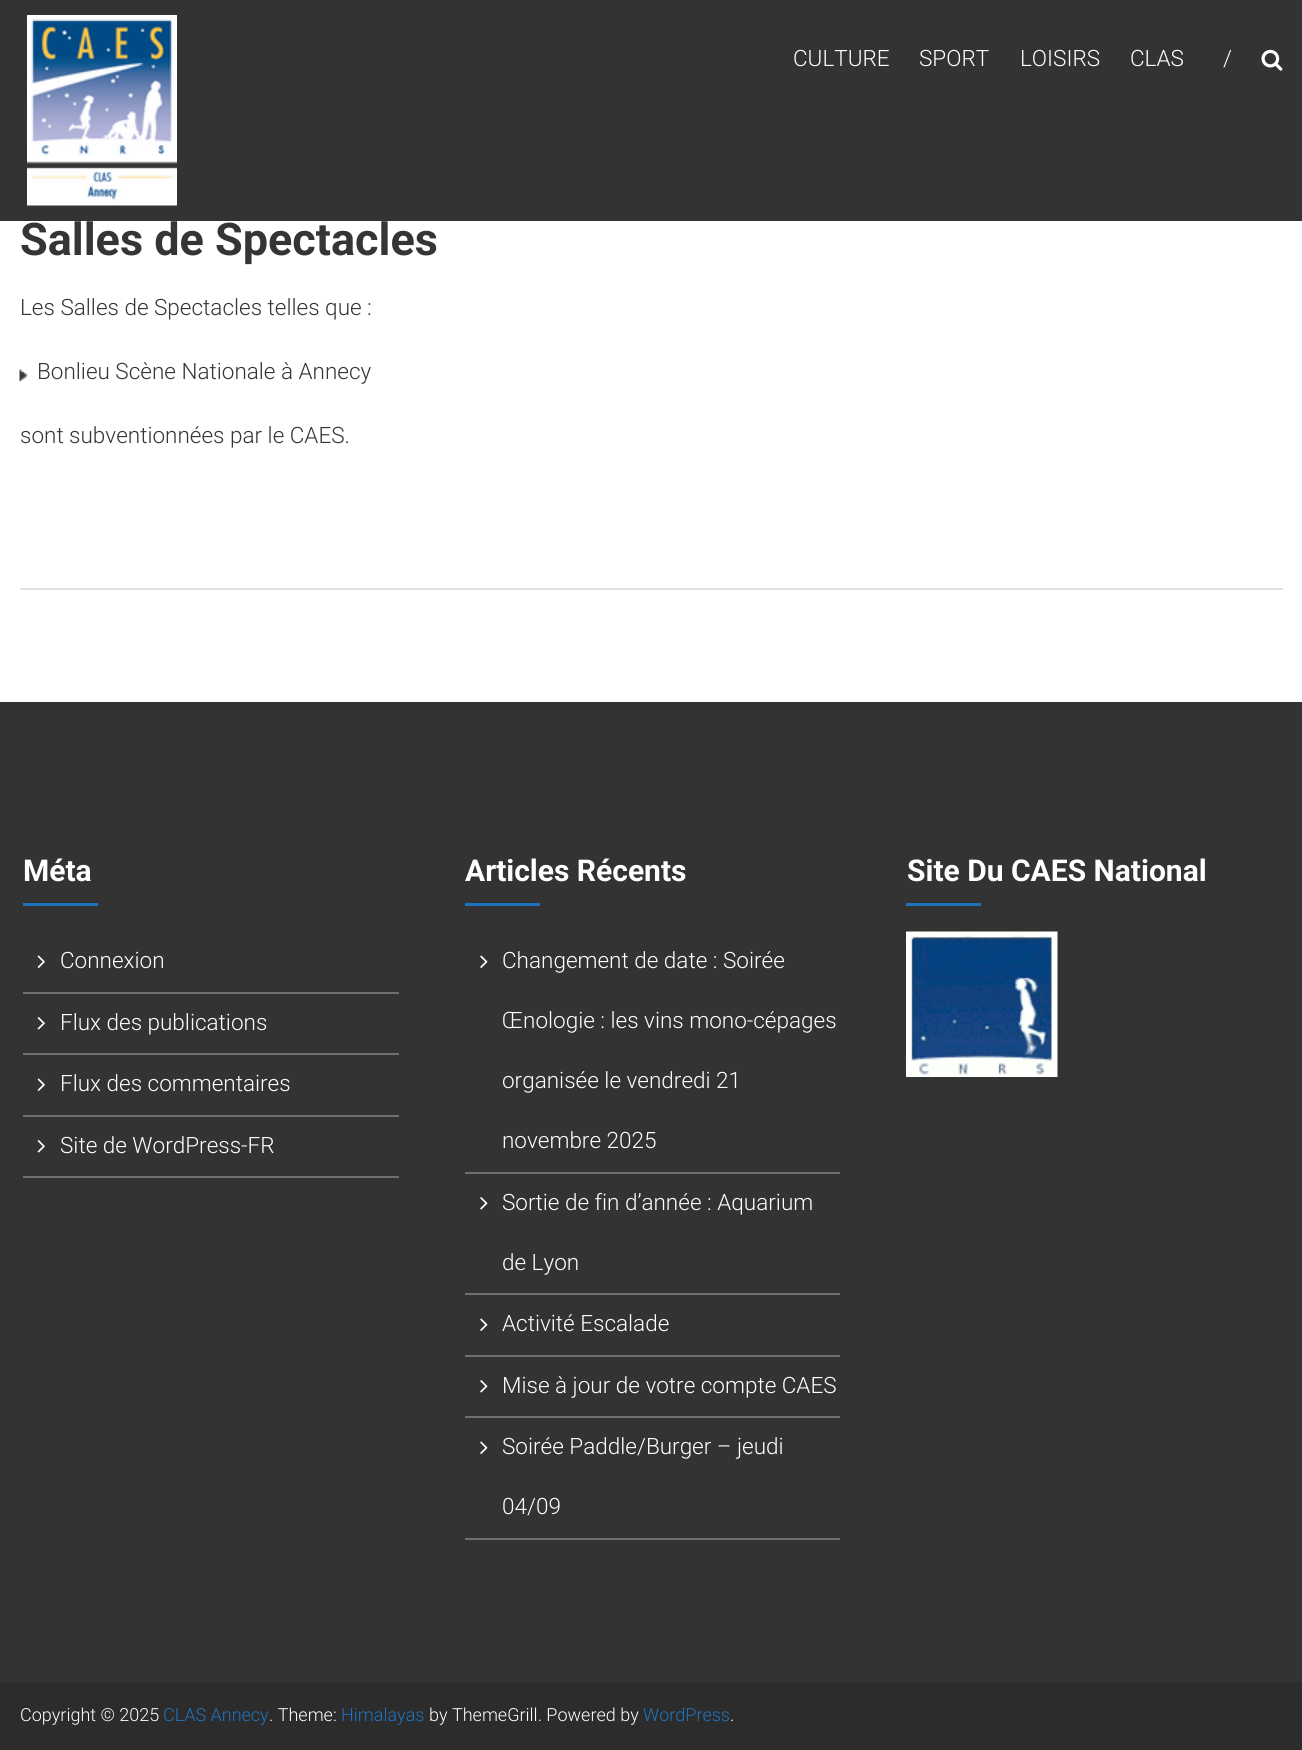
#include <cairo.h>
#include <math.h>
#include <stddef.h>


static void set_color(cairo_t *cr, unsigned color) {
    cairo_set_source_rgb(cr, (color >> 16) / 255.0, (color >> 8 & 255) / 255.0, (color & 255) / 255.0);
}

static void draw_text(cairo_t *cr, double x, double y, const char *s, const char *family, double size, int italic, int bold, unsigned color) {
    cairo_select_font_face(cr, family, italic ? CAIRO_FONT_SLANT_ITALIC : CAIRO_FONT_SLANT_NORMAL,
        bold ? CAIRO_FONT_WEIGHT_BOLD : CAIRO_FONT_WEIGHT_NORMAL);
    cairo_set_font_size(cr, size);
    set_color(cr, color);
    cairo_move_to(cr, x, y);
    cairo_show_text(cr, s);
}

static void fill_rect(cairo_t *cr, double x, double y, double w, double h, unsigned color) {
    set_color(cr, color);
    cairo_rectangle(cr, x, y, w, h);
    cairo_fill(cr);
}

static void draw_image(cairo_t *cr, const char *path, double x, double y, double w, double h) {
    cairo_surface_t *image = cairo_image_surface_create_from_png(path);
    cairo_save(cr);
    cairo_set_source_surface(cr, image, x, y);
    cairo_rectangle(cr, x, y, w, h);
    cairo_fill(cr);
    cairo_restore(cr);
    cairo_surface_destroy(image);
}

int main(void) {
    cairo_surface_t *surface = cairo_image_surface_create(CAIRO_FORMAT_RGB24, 1302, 1750);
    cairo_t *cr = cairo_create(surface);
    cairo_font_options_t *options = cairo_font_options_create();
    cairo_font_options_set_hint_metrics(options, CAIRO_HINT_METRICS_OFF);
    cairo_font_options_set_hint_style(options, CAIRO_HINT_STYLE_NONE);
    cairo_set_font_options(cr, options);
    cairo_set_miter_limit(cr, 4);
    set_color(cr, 0xFFFFFF);
    cairo_paint(cr);
    fill_rect(cr, 0, 0, 1302, 221, 0x333333);
    draw_image(cr, "assets/img1.png", 27, 15, 150, 191);
    draw_text(cr, 793, 66, "CULTURE", "Roboto Light", 22.5, 0, 0, 0xFFFFFF);
    draw_text(cr, 919, 66, "SPORT", "Roboto Light", 22.5, 0, 0, 0xFFFFFF);
    draw_text(cr, 1020, 66, "LOISIRS", "Roboto Light", 22.5, 0, 0, 0xFFFFFF);
    draw_text(cr, 1130, 66, "CLAS", "Roboto Light", 22.5, 0, 0, 0xFFFFFF);
    draw_text(cr, 1223, 66, "/", "Roboto Light", 22.5, 0, 0, 0xFFFFFF);
    draw_image(cr, "assets/img2.png", 1261, 49, 22, 22);
    fill_rect(cr, 20, 588, 1263, 2, 0xE1E1E1);
    draw_text(cr, 20, 255, "Salles de Spectacles", "Roboto", 45, 0, 1, 0x353535);
    draw_text(cr, 20, 315, "Les Salles de Spectacles telles que :", "Roboto Light", 22.5, 0, 0, 0x353535);
    draw_image(cr, "assets/img3.png", 19, 368, 9, 13);
    draw_text(cr, 37, 379, "Bonlieu Scène Nationale à Annecy", "Roboto Light", 22.5, 0, 0, 0x353535);
    draw_text(cr, 20, 443, "sont subventionnées par le CAES.", "Roboto Light", 22.5, 0, 0, 0x353535);
    fill_rect(cr, 0, 702, 1302, 980, 0x333333);
    draw_text(cr, 23, 881, "Méta", "Roboto", 30, 0, 1, 0xFFFFFF);
    fill_rect(cr, 23, 903, 75, 3, 0x1E73BE);
    fill_rect(cr, 23, 992, 376, 2, 0x707070);
    draw_image(cr, "assets/img4.png", 37, 955, 8, 13);
    draw_text(cr, 60, 968, "Connexion", "Roboto Light", 22.5, 0, 0, 0xFFFFFF);
    fill_rect(cr, 23, 1053, 376, 2, 0x707070);
    draw_image(cr, "assets/img5.png", 37, 1017, 8, 13);
    draw_text(cr, 60, 1030, "Flux des publications", "Roboto Light", 22.5, 0, 0, 0xFFFFFF);
    fill_rect(cr, 23, 1115, 376, 2, 0x707070);
    draw_image(cr, "assets/img4.png", 37, 1078, 8, 13);
    draw_text(cr, 60, 1091, "Flux des commentaires", "Roboto Light", 22.5, 0, 0, 0xFFFFFF);
    fill_rect(cr, 23, 1176, 376, 2, 0x707070);
    draw_image(cr, "assets/img5.png", 37, 1140, 8, 13);
    draw_text(cr, 60, 1153, "Site de WordPress-FR", "Roboto Light", 22.5, 0, 0, 0xFFFFFF);
    draw_text(cr, 465, 881, "Articles Récents", "Roboto", 30, 0, 1, 0xFFFFFF);
    fill_rect(cr, 465, 903, 75, 3, 0x1E73BE);
    fill_rect(cr, 465, 1172, 375, 2, 0x707070);
    draw_image(cr, "assets/img6.png", 480, 955, 8, 13);
    draw_text(cr, 502, 968, "Changement de date : Soirée", "Roboto Light", 22.5, 0, 0, 0xFFFFFF);
    draw_text(cr, 502, 1028, "Œnologie : les vins mono-cépages", "Roboto Light", 22.5, 0, 0, 0xFFFFFF);
    draw_text(cr, 502, 1088, "organisée le vendredi 21", "Roboto Light", 22.5, 0, 0, 0xFFFFFF);
    draw_text(cr, 502, 1148, "novembre 2025", "Roboto Light", 22.5, 0, 0, 0xFFFFFF);
    fill_rect(cr, 465, 1293, 375, 2, 0x707070);
    draw_image(cr, "assets/img7.png", 480, 1197, 8, 13);
    draw_text(cr, 502, 1210, "Sortie de fin d’année : Aquarium", "Roboto Light", 22.5, 0, 0, 0xFFFFFF);
    draw_text(cr, 502, 1270, "de Lyon", "Roboto Light", 22.5, 0, 0, 0xFFFFFF);
    fill_rect(cr, 465, 1355, 375, 2, 0x707070);
    draw_image(cr, "assets/img6.png", 480, 1318, 8, 13);
    draw_text(cr, 502, 1331, "Activité Escalade", "Roboto Light", 22.5, 0, 0, 0xFFFFFF);
    fill_rect(cr, 465, 1416, 375, 2, 0x707070);
    draw_image(cr, "assets/img7.png", 480, 1380, 8, 13);
    draw_text(cr, 502, 1393, "Mise à jour de votre compte CAES", "Roboto Light", 22.5, 0, 0, 0xFFFFFF);
    fill_rect(cr, 465, 1538, 375, 2, 0x707070);
    draw_image(cr, "assets/img6.png", 480, 1441, 8, 13);
    draw_text(cr, 502, 1454, "Soirée Paddle/Burger – jeudi", "Roboto Light", 22.5, 0, 0, 0xFFFFFF);
    draw_text(cr, 502, 1514, "04/09", "Roboto Light", 22.5, 0, 0, 0xFFFFFF);
    draw_text(cr, 907, 881, "Site Du CAES National", "Roboto", 30, 0, 1, 0xFFFFFF);
    fill_rect(cr, 906, 903, 75, 3, 0x1E73BE);
    draw_image(cr, "assets/img8.png", 906, 931, 152, 146);
    fill_rect(cr, 0, 1682, 1302, 68, 0x2C2C2C);
    draw_text(cr, 20, 1721, "Copyright © 2025", "Roboto Light", 18, 0, 0, 0xFFFFFF);
    draw_text(cr, 163, 1721, "CLAS Annecy", "Roboto Light", 18, 0, 0, 0x1E73BE);
    draw_text(cr, 269, 1721, ". Theme:", "Roboto Light", 18, 0, 0, 0xFFFFFF);
    draw_text(cr, 341, 1721, "Himalayas", "Roboto Light", 18, 0, 0, 0x1E73BE);
    draw_text(cr, 429, 1721, "by ThemeGrill. Powered by", "Roboto Light", 18, 0, 0, 0xFFFFFF);
    draw_text(cr, 643, 1721, "WordPress", "Roboto Light", 18, 0, 0, 0x1E73BE);
    draw_text(cr, 730, 1721, ".", "Roboto Light", 18, 0, 0, 0xFFFFFF);
    cairo_surface_write_to_png(surface, "output.png");
    cairo_font_options_destroy(options);
    cairo_destroy(cr);
    cairo_surface_destroy(surface);
    return 0;
}
